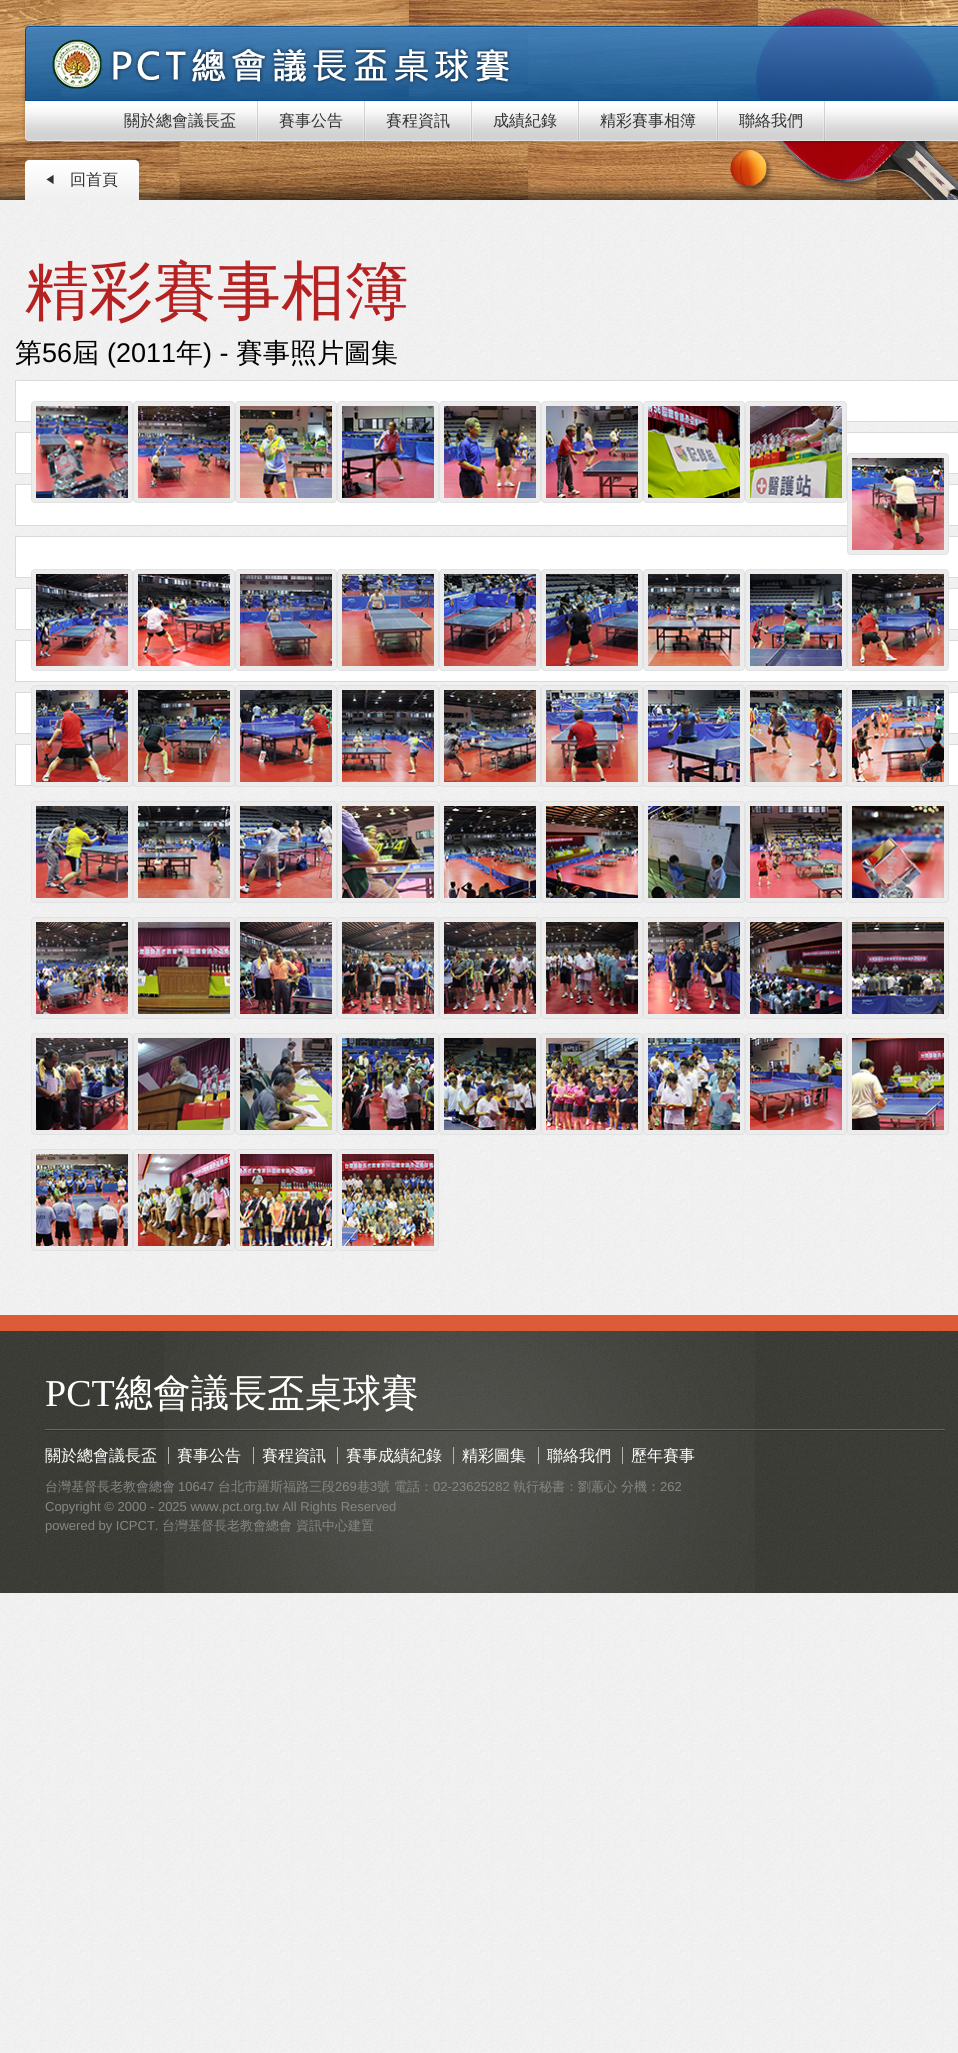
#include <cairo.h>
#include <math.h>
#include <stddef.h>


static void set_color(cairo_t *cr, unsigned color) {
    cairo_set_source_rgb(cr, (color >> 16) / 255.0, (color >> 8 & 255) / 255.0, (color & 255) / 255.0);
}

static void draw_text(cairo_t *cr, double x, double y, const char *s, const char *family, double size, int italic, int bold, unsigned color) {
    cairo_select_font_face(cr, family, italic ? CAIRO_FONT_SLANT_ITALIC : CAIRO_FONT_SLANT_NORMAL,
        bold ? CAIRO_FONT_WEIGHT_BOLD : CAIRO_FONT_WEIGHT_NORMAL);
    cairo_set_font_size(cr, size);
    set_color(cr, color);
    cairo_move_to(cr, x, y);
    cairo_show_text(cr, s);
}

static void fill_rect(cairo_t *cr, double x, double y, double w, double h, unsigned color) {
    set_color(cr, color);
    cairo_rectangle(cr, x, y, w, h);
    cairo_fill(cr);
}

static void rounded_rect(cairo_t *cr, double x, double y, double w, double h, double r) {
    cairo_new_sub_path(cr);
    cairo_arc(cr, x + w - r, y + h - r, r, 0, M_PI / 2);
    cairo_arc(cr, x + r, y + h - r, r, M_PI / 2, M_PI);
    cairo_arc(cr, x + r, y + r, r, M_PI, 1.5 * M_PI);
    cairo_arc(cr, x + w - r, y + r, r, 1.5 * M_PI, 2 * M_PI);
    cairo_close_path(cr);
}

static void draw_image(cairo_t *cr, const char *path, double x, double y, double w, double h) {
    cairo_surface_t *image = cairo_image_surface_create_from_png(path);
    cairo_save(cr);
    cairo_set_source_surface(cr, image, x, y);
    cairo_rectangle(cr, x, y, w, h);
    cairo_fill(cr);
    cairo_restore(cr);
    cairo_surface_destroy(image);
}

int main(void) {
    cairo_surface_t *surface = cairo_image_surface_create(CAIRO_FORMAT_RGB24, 958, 2053);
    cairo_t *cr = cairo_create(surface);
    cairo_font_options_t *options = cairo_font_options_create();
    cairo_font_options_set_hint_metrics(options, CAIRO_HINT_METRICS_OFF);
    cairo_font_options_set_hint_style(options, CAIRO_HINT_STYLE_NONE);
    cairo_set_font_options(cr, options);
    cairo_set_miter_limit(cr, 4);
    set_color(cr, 0xFFFFFF);
    cairo_paint(cr);
    draw_image(cr, "assets/img1.png", 0, 200, 958, 1853);
    draw_image(cr, "assets/img2.png", 0, 0, 958, 200);
    draw_image(cr, "assets/img3.png", 22, 26, 936, 119);
    draw_image(cr, "assets/img4.png", 52, 39, 459, 50);
    draw_image(cr, "assets/img5.png", 256, 101, 3, 40);
    draw_text(cr, 124, 126, "關於總會議長盃", "WenQuanYi Zen Hei Medium", 16, 0, 0, 0x323232);
    draw_image(cr, "assets/img5.png", 363, 101, 3, 40);
    draw_text(cr, 279, 126, "賽事公告", "WenQuanYi Zen Hei Medium", 16, 0, 0, 0x323232);
    draw_image(cr, "assets/img5.png", 470, 101, 3, 40);
    draw_text(cr, 386, 126, "賽程資訊", "WenQuanYi Zen Hei Medium", 16, 0, 0, 0x323232);
    draw_image(cr, "assets/img5.png", 577, 101, 3, 40);
    draw_text(cr, 493, 126, "成績紀錄", "WenQuanYi Zen Hei Medium", 16, 0, 0, 0x323232);
    draw_image(cr, "assets/img5.png", 716, 101, 3, 40);
    draw_text(cr, 600, 126, "精彩賽事相簿", "WenQuanYi Zen Hei Medium", 16, 0, 0, 0x323232);
    draw_image(cr, "assets/img5.png", 823, 101, 3, 40);
    draw_text(cr, 739, 126, "聯絡我們", "WenQuanYi Zen Hei Medium", 16, 0, 0, 0x323232);
    draw_image(cr, "assets/img6.png", 119, 160, 20, 40);
    draw_image(cr, "assets/img7.png", 25, 160, 94, 40);
    draw_image(cr, "assets/img8.png", 46, 174, 8, 10);
    draw_text(cr, 70, 185, "回首頁", "WenQuanYi Zen Hei Medium", 16, 0, 0, 0x323232);
    draw_text(cr, 25, 313, "精彩賽事相簿", "WenQuanYi Zen Hei Medium", 64, 0, 0, 0xB62121);
    draw_text(cr, 15, 362, "第", "WenQuanYi Zen Hei Medium", 27, 0, 0, 0x000000);
    draw_text(cr, 42, 362, "56", "Liberation Sans", 27, 0, 0, 0x000000);
    draw_text(cr, 72, 362, "屆", "WenQuanYi Zen Hei Medium", 27, 0, 0, 0x000000);
    draw_text(cr, 107, 362, "(2011", "Liberation Sans", 27, 0, 0, 0x000000);
    draw_text(cr, 176, 362, "年", "WenQuanYi Zen Hei Medium", 27, 0, 0, 0x000000);
    draw_text(cr, 203, 362, ") -", "Liberation Sans", 27, 0, 0, 0x000000);
    draw_text(cr, 236, 362, "賽事照片圖集", "WenQuanYi Zen Hei Medium", 27, 0, 0, 0x000000);
    set_color(cr, 0xFFFFFF);
    cairo_rectangle(cr, 15.5, 380.5, 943, 41);
    cairo_fill_preserve(cr);
    set_color(cr, 0xDADADA);
    cairo_set_line_width(cr, 1);
    cairo_stroke(cr);
    set_color(cr, 0xFFFFFF);
    cairo_rectangle(cr, 15.5, 432.5, 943, 41);
    cairo_fill_preserve(cr);
    set_color(cr, 0xDADADA);
    cairo_stroke(cr);
    set_color(cr, 0xFFFFFF);
    cairo_rectangle(cr, 15.5, 484.5, 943, 41);
    cairo_fill_preserve(cr);
    set_color(cr, 0xDADADA);
    cairo_stroke(cr);
    set_color(cr, 0xECECEC);
    rounded_rect(cr, 31.5, 401.5, 101, 101, 3.5);
    cairo_fill_preserve(cr);
    set_color(cr, 0xE1E2E3);
    cairo_stroke(cr);
    draw_image(cr, "assets/img9.png", 36, 406, 92, 92);
    set_color(cr, 0xECECEC);
    rounded_rect(cr, 133.5, 401.5, 101, 101, 3.5);
    cairo_fill_preserve(cr);
    set_color(cr, 0xE1E2E3);
    cairo_stroke(cr);
    draw_image(cr, "assets/img10.png", 138, 406, 92, 92);
    set_color(cr, 0xECECEC);
    rounded_rect(cr, 235.5, 401.5, 101, 101, 3.5);
    cairo_fill_preserve(cr);
    set_color(cr, 0xE1E2E3);
    cairo_stroke(cr);
    draw_image(cr, "assets/img11.png", 240, 406, 92, 92);
    set_color(cr, 0xECECEC);
    rounded_rect(cr, 337.5, 401.5, 101, 101, 3.5);
    cairo_fill_preserve(cr);
    set_color(cr, 0xE1E2E3);
    cairo_stroke(cr);
    draw_image(cr, "assets/img12.png", 342, 406, 92, 92);
    set_color(cr, 0xECECEC);
    rounded_rect(cr, 439.5, 401.5, 101, 101, 3.5);
    cairo_fill_preserve(cr);
    set_color(cr, 0xE1E2E3);
    cairo_stroke(cr);
    draw_image(cr, "assets/img13.png", 444, 406, 92, 92);
    set_color(cr, 0xECECEC);
    rounded_rect(cr, 541.5, 401.5, 101, 101, 3.5);
    cairo_fill_preserve(cr);
    set_color(cr, 0xE1E2E3);
    cairo_stroke(cr);
    draw_image(cr, "assets/img14.png", 546, 406, 92, 92);
    set_color(cr, 0xECECEC);
    rounded_rect(cr, 643.5, 401.5, 101, 101, 3.5);
    cairo_fill_preserve(cr);
    set_color(cr, 0xE1E2E3);
    cairo_stroke(cr);
    draw_image(cr, "assets/img15.png", 648, 406, 92, 92);
    set_color(cr, 0xECECEC);
    rounded_rect(cr, 745.5, 401.5, 101, 101, 3.5);
    cairo_fill_preserve(cr);
    set_color(cr, 0xE1E2E3);
    cairo_stroke(cr);
    draw_image(cr, "assets/img16.png", 750, 406, 92, 92);
    set_color(cr, 0xFFFFFF);
    cairo_rectangle(cr, 15.5, 536.5, 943, 41);
    cairo_fill_preserve(cr);
    set_color(cr, 0xDADADA);
    cairo_stroke(cr);
    set_color(cr, 0xECECEC);
    rounded_rect(cr, 847.5, 453.5, 101, 101, 3.5);
    cairo_fill_preserve(cr);
    set_color(cr, 0xE1E2E3);
    cairo_stroke(cr);
    draw_image(cr, "assets/img17.png", 852, 458, 92, 92);
    set_color(cr, 0xFFFFFF);
    cairo_rectangle(cr, 15.5, 588.5, 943, 41);
    cairo_fill_preserve(cr);
    set_color(cr, 0xDADADA);
    cairo_stroke(cr);
    set_color(cr, 0xFFFFFF);
    cairo_rectangle(cr, 15.5, 640.5, 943, 41);
    cairo_fill_preserve(cr);
    set_color(cr, 0xDADADA);
    cairo_stroke(cr);
    set_color(cr, 0xECECEC);
    rounded_rect(cr, 31.5, 569.5, 101, 101, 3.5);
    cairo_fill_preserve(cr);
    set_color(cr, 0xE1E2E3);
    cairo_stroke(cr);
    draw_image(cr, "assets/img18.png", 36, 574, 92, 92);
    set_color(cr, 0xECECEC);
    rounded_rect(cr, 133.5, 569.5, 101, 101, 3.5);
    cairo_fill_preserve(cr);
    set_color(cr, 0xE1E2E3);
    cairo_stroke(cr);
    draw_image(cr, "assets/img19.png", 138, 574, 92, 92);
    set_color(cr, 0xECECEC);
    rounded_rect(cr, 235.5, 569.5, 101, 101, 3.5);
    cairo_fill_preserve(cr);
    set_color(cr, 0xE1E2E3);
    cairo_stroke(cr);
    draw_image(cr, "assets/img20.png", 240, 574, 92, 92);
    set_color(cr, 0xECECEC);
    rounded_rect(cr, 337.5, 569.5, 101, 101, 3.5);
    cairo_fill_preserve(cr);
    set_color(cr, 0xE1E2E3);
    cairo_stroke(cr);
    draw_image(cr, "assets/img21.png", 342, 574, 92, 92);
    set_color(cr, 0xECECEC);
    rounded_rect(cr, 439.5, 569.5, 101, 101, 3.5);
    cairo_fill_preserve(cr);
    set_color(cr, 0xE1E2E3);
    cairo_stroke(cr);
    draw_image(cr, "assets/img22.png", 444, 574, 92, 92);
    set_color(cr, 0xECECEC);
    rounded_rect(cr, 541.5, 569.5, 101, 101, 3.5);
    cairo_fill_preserve(cr);
    set_color(cr, 0xE1E2E3);
    cairo_stroke(cr);
    draw_image(cr, "assets/img23.png", 546, 574, 92, 92);
    set_color(cr, 0xECECEC);
    rounded_rect(cr, 643.5, 569.5, 101, 101, 3.5);
    cairo_fill_preserve(cr);
    set_color(cr, 0xE1E2E3);
    cairo_stroke(cr);
    draw_image(cr, "assets/img24.png", 648, 574, 92, 92);
    set_color(cr, 0xECECEC);
    rounded_rect(cr, 745.5, 569.5, 101, 101, 3.5);
    cairo_fill_preserve(cr);
    set_color(cr, 0xE1E2E3);
    cairo_stroke(cr);
    draw_image(cr, "assets/img25.png", 750, 574, 92, 92);
    set_color(cr, 0xECECEC);
    rounded_rect(cr, 847.5, 569.5, 101, 101, 3.5);
    cairo_fill_preserve(cr);
    set_color(cr, 0xE1E2E3);
    cairo_stroke(cr);
    draw_image(cr, "assets/img26.png", 852, 574, 92, 92);
    set_color(cr, 0xFFFFFF);
    cairo_rectangle(cr, 15.5, 692.5, 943, 41);
    cairo_fill_preserve(cr);
    set_color(cr, 0xDADADA);
    cairo_stroke(cr);
    set_color(cr, 0xFFFFFF);
    cairo_rectangle(cr, 15.5, 744.5, 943, 41);
    cairo_fill_preserve(cr);
    set_color(cr, 0xDADADA);
    cairo_stroke(cr);
    set_color(cr, 0xECECEC);
    rounded_rect(cr, 31.5, 685.5, 101, 101, 3.5);
    cairo_fill_preserve(cr);
    set_color(cr, 0xE1E2E3);
    cairo_stroke(cr);
    draw_image(cr, "assets/img27.png", 36, 690, 92, 92);
    set_color(cr, 0xECECEC);
    rounded_rect(cr, 133.5, 685.5, 101, 101, 3.5);
    cairo_fill_preserve(cr);
    set_color(cr, 0xE1E2E3);
    cairo_stroke(cr);
    draw_image(cr, "assets/img28.png", 138, 690, 92, 92);
    set_color(cr, 0xECECEC);
    rounded_rect(cr, 235.5, 685.5, 101, 101, 3.5);
    cairo_fill_preserve(cr);
    set_color(cr, 0xE1E2E3);
    cairo_stroke(cr);
    draw_image(cr, "assets/img29.png", 240, 690, 92, 92);
    set_color(cr, 0xECECEC);
    rounded_rect(cr, 337.5, 685.5, 101, 101, 3.5);
    cairo_fill_preserve(cr);
    set_color(cr, 0xE1E2E3);
    cairo_stroke(cr);
    draw_image(cr, "assets/img30.png", 342, 690, 92, 92);
    set_color(cr, 0xECECEC);
    rounded_rect(cr, 439.5, 685.5, 101, 101, 3.5);
    cairo_fill_preserve(cr);
    set_color(cr, 0xE1E2E3);
    cairo_stroke(cr);
    draw_image(cr, "assets/img31.png", 444, 690, 92, 92);
    set_color(cr, 0xECECEC);
    rounded_rect(cr, 541.5, 685.5, 101, 101, 3.5);
    cairo_fill_preserve(cr);
    set_color(cr, 0xE1E2E3);
    cairo_stroke(cr);
    draw_image(cr, "assets/img32.png", 546, 690, 92, 92);
    set_color(cr, 0xECECEC);
    rounded_rect(cr, 643.5, 685.5, 101, 101, 3.5);
    cairo_fill_preserve(cr);
    set_color(cr, 0xE1E2E3);
    cairo_stroke(cr);
    draw_image(cr, "assets/img33.png", 648, 690, 92, 92);
    set_color(cr, 0xECECEC);
    rounded_rect(cr, 745.5, 685.5, 101, 101, 3.5);
    cairo_fill_preserve(cr);
    set_color(cr, 0xE1E2E3);
    cairo_stroke(cr);
    draw_image(cr, "assets/img34.png", 750, 690, 92, 92);
    set_color(cr, 0xECECEC);
    rounded_rect(cr, 847.5, 685.5, 101, 101, 3.5);
    cairo_fill_preserve(cr);
    set_color(cr, 0xE1E2E3);
    cairo_stroke(cr);
    draw_image(cr, "assets/img35.png", 852, 690, 92, 92);
    set_color(cr, 0xECECEC);
    rounded_rect(cr, 31.5, 801.5, 101, 101, 3.5);
    cairo_fill_preserve(cr);
    set_color(cr, 0xE1E2E3);
    cairo_stroke(cr);
    draw_image(cr, "assets/img36.png", 36, 806, 92, 92);
    set_color(cr, 0xECECEC);
    rounded_rect(cr, 133.5, 801.5, 101, 101, 3.5);
    cairo_fill_preserve(cr);
    set_color(cr, 0xE1E2E3);
    cairo_stroke(cr);
    draw_image(cr, "assets/img37.png", 138, 806, 92, 92);
    set_color(cr, 0xECECEC);
    rounded_rect(cr, 235.5, 801.5, 101, 101, 3.5);
    cairo_fill_preserve(cr);
    set_color(cr, 0xE1E2E3);
    cairo_stroke(cr);
    draw_image(cr, "assets/img38.png", 240, 806, 92, 92);
    set_color(cr, 0xECECEC);
    rounded_rect(cr, 337.5, 801.5, 101, 101, 3.5);
    cairo_fill_preserve(cr);
    set_color(cr, 0xE1E2E3);
    cairo_stroke(cr);
    draw_image(cr, "assets/img39.png", 342, 806, 92, 92);
    set_color(cr, 0xECECEC);
    rounded_rect(cr, 439.5, 801.5, 101, 101, 3.5);
    cairo_fill_preserve(cr);
    set_color(cr, 0xE1E2E3);
    cairo_stroke(cr);
    draw_image(cr, "assets/img40.png", 444, 806, 92, 92);
    set_color(cr, 0xECECEC);
    rounded_rect(cr, 541.5, 801.5, 101, 101, 3.5);
    cairo_fill_preserve(cr);
    set_color(cr, 0xE1E2E3);
    cairo_stroke(cr);
    draw_image(cr, "assets/img41.png", 546, 806, 92, 92);
    set_color(cr, 0xECECEC);
    rounded_rect(cr, 643.5, 801.5, 101, 101, 3.5);
    cairo_fill_preserve(cr);
    set_color(cr, 0xE1E2E3);
    cairo_stroke(cr);
    draw_image(cr, "assets/img42.png", 648, 806, 92, 92);
    set_color(cr, 0xECECEC);
    rounded_rect(cr, 745.5, 801.5, 101, 101, 3.5);
    cairo_fill_preserve(cr);
    set_color(cr, 0xE1E2E3);
    cairo_stroke(cr);
    draw_image(cr, "assets/img43.png", 750, 806, 92, 92);
    set_color(cr, 0xECECEC);
    rounded_rect(cr, 847.5, 801.5, 101, 101, 3.5);
    cairo_fill_preserve(cr);
    set_color(cr, 0xE1E2E3);
    cairo_stroke(cr);
    draw_image(cr, "assets/img44.png", 852, 806, 92, 92);
    set_color(cr, 0xECECEC);
    rounded_rect(cr, 31.5, 917.5, 101, 101, 3.5);
    cairo_fill_preserve(cr);
    set_color(cr, 0xE1E2E3);
    cairo_stroke(cr);
    draw_image(cr, "assets/img45.png", 36, 922, 92, 92);
    set_color(cr, 0xECECEC);
    rounded_rect(cr, 133.5, 917.5, 101, 101, 3.5);
    cairo_fill_preserve(cr);
    set_color(cr, 0xE1E2E3);
    cairo_stroke(cr);
    draw_image(cr, "assets/img46.png", 138, 922, 92, 92);
    set_color(cr, 0xECECEC);
    rounded_rect(cr, 235.5, 917.5, 101, 101, 3.5);
    cairo_fill_preserve(cr);
    set_color(cr, 0xE1E2E3);
    cairo_stroke(cr);
    draw_image(cr, "assets/img47.png", 240, 922, 92, 92);
    set_color(cr, 0xECECEC);
    rounded_rect(cr, 337.5, 917.5, 101, 101, 3.5);
    cairo_fill_preserve(cr);
    set_color(cr, 0xE1E2E3);
    cairo_stroke(cr);
    draw_image(cr, "assets/img48.png", 342, 922, 92, 92);
    set_color(cr, 0xECECEC);
    rounded_rect(cr, 439.5, 917.5, 101, 101, 3.5);
    cairo_fill_preserve(cr);
    set_color(cr, 0xE1E2E3);
    cairo_stroke(cr);
    draw_image(cr, "assets/img49.png", 444, 922, 92, 92);
    set_color(cr, 0xECECEC);
    rounded_rect(cr, 541.5, 917.5, 101, 101, 3.5);
    cairo_fill_preserve(cr);
    set_color(cr, 0xE1E2E3);
    cairo_stroke(cr);
    draw_image(cr, "assets/img50.png", 546, 922, 92, 92);
    set_color(cr, 0xECECEC);
    rounded_rect(cr, 643.5, 917.5, 101, 101, 3.5);
    cairo_fill_preserve(cr);
    set_color(cr, 0xE1E2E3);
    cairo_stroke(cr);
    draw_image(cr, "assets/img51.png", 648, 922, 92, 92);
    set_color(cr, 0xECECEC);
    rounded_rect(cr, 745.5, 917.5, 101, 101, 3.5);
    cairo_fill_preserve(cr);
    set_color(cr, 0xE1E2E3);
    cairo_stroke(cr);
    draw_image(cr, "assets/img52.png", 750, 922, 92, 92);
    set_color(cr, 0xECECEC);
    rounded_rect(cr, 847.5, 917.5, 101, 101, 3.5);
    cairo_fill_preserve(cr);
    set_color(cr, 0xE1E2E3);
    cairo_stroke(cr);
    draw_image(cr, "assets/img53.png", 852, 922, 92, 92);
    set_color(cr, 0xECECEC);
    rounded_rect(cr, 31.5, 1033.5, 101, 101, 3.5);
    cairo_fill_preserve(cr);
    set_color(cr, 0xE1E2E3);
    cairo_stroke(cr);
    draw_image(cr, "assets/img54.png", 36, 1038, 92, 92);
    set_color(cr, 0xECECEC);
    rounded_rect(cr, 133.5, 1033.5, 101, 101, 3.5);
    cairo_fill_preserve(cr);
    set_color(cr, 0xE1E2E3);
    cairo_stroke(cr);
    draw_image(cr, "assets/img55.png", 138, 1038, 92, 92);
    set_color(cr, 0xECECEC);
    rounded_rect(cr, 235.5, 1033.5, 101, 101, 3.5);
    cairo_fill_preserve(cr);
    set_color(cr, 0xE1E2E3);
    cairo_stroke(cr);
    draw_image(cr, "assets/img56.png", 240, 1038, 92, 92);
    set_color(cr, 0xECECEC);
    rounded_rect(cr, 337.5, 1033.5, 101, 101, 3.5);
    cairo_fill_preserve(cr);
    set_color(cr, 0xE1E2E3);
    cairo_stroke(cr);
    draw_image(cr, "assets/img57.png", 342, 1038, 92, 92);
    set_color(cr, 0xECECEC);
    rounded_rect(cr, 439.5, 1033.5, 101, 101, 3.5);
    cairo_fill_preserve(cr);
    set_color(cr, 0xE1E2E3);
    cairo_stroke(cr);
    draw_image(cr, "assets/img58.png", 444, 1038, 92, 92);
    set_color(cr, 0xECECEC);
    rounded_rect(cr, 541.5, 1033.5, 101, 101, 3.5);
    cairo_fill_preserve(cr);
    set_color(cr, 0xE1E2E3);
    cairo_stroke(cr);
    draw_image(cr, "assets/img59.png", 546, 1038, 92, 92);
    set_color(cr, 0xECECEC);
    rounded_rect(cr, 643.5, 1033.5, 101, 101, 3.5);
    cairo_fill_preserve(cr);
    set_color(cr, 0xE1E2E3);
    cairo_stroke(cr);
    draw_image(cr, "assets/img60.png", 648, 1038, 92, 92);
    set_color(cr, 0xECECEC);
    rounded_rect(cr, 745.5, 1033.5, 101, 101, 3.5);
    cairo_fill_preserve(cr);
    set_color(cr, 0xE1E2E3);
    cairo_stroke(cr);
    draw_image(cr, "assets/img61.png", 750, 1038, 92, 92);
    set_color(cr, 0xECECEC);
    rounded_rect(cr, 847.5, 1033.5, 101, 101, 3.5);
    cairo_fill_preserve(cr);
    set_color(cr, 0xE1E2E3);
    cairo_stroke(cr);
    draw_image(cr, "assets/img62.png", 852, 1038, 92, 92);
    set_color(cr, 0xECECEC);
    rounded_rect(cr, 31.5, 1149.5, 101, 101, 3.5);
    cairo_fill_preserve(cr);
    set_color(cr, 0xE1E2E3);
    cairo_stroke(cr);
    draw_image(cr, "assets/img63.png", 36, 1154, 92, 92);
    set_color(cr, 0xECECEC);
    rounded_rect(cr, 133.5, 1149.5, 101, 101, 3.5);
    cairo_fill_preserve(cr);
    set_color(cr, 0xE1E2E3);
    cairo_stroke(cr);
    draw_image(cr, "assets/img64.png", 138, 1154, 92, 92);
    set_color(cr, 0xECECEC);
    rounded_rect(cr, 235.5, 1149.5, 101, 101, 3.5);
    cairo_fill_preserve(cr);
    set_color(cr, 0xE1E2E3);
    cairo_stroke(cr);
    draw_image(cr, "assets/img65.png", 240, 1154, 92, 92);
    set_color(cr, 0xECECEC);
    rounded_rect(cr, 337.5, 1149.5, 101, 101, 3.5);
    cairo_fill_preserve(cr);
    set_color(cr, 0xE1E2E3);
    cairo_stroke(cr);
    draw_image(cr, "assets/img66.png", 342, 1154, 92, 92);
    fill_rect(cr, 0, 1315, 958, 16, 0xDD5B36);
    draw_image(cr, "assets/img67.png", 0, 1331, 958, 262);
    draw_image(cr, "assets/img68.png", 164, 1331, 591, 262);
    draw_image(cr, "assets/img69.png", 45, 1429, 900, 2);
    draw_text(cr, 45, 1406, "PCT", "Liberation Serif", 38, 0, 0, 0xFFFFFF);
    draw_text(cr, 115, 1406, "總會議長盃桌球賽", "WenQuanYi Zen Hei Medium", 38, 0, 0, 0xFFFFFF);
    draw_text(cr, 45, 1461, "關於總會議長盃", "WenQuanYi Zen Hei Medium", 16, 0, 0, 0xFFFFFF);
    draw_text(cr, 177, 1461, "賽事公告", "WenQuanYi Zen Hei Medium", 16, 0, 0, 0xFFFFFF);
    fill_rect(cr, 168, 1447, 1, 17, 0xB5B5B5);
    draw_text(cr, 262, 1461, "賽程資訊", "WenQuanYi Zen Hei Medium", 16, 0, 0, 0xFFFFFF);
    fill_rect(cr, 253, 1447, 1, 17, 0xB5B5B5);
    draw_text(cr, 346, 1461, "賽事成績紀錄", "WenQuanYi Zen Hei Medium", 16, 0, 0, 0xFFFFFF);
    fill_rect(cr, 337, 1447, 1, 17, 0xB5B5B5);
    draw_text(cr, 462, 1461, "精彩圖集", "WenQuanYi Zen Hei Medium", 16, 0, 0, 0xFFFFFF);
    fill_rect(cr, 453, 1447, 1, 17, 0xB5B5B5);
    draw_text(cr, 547, 1461, "聯絡我們", "WenQuanYi Zen Hei Medium", 16, 0, 0, 0xFFFFFF);
    fill_rect(cr, 538, 1447, 1, 17, 0xB5B5B5);
    draw_text(cr, 631, 1461, "歷年賽事", "WenQuanYi Zen Hei Medium", 16, 0, 0, 0xFFFFFF);
    fill_rect(cr, 622, 1447, 1, 17, 0xB5B5B5);
    draw_text(cr, 45, 1491, "台灣基督長老教會總會", "WenQuanYi Zen Hei Medium", 13, 0, 0, 0x868686);
    draw_text(cr, 178, 1491, "10647", "Liberation Sans", 13, 0, 0, 0x868686);
    draw_text(cr, 218, 1491, "台北市羅斯福路三段", "WenQuanYi Zen Hei Medium", 13, 0, 0, 0x868686);
    draw_text(cr, 335, 1491, "269", "Liberation Sans", 13, 0, 0, 0x868686);
    draw_text(cr, 357, 1491, "巷", "WenQuanYi Zen Hei Medium", 13, 0, 0, 0x868686);
    draw_text(cr, 370, 1491, "3", "Liberation Sans", 13, 0, 0, 0x868686);
    draw_text(cr, 377, 1491, "號 電話：", "WenQuanYi Zen Hei Medium", 13, 0, 0, 0x868686);
    draw_text(cr, 433, 1491, "02-23625282", "Liberation Sans", 13, 0, 0, 0x868686);
    draw_text(cr, 513, 1491, "執行秘書：劉蕙心 分機：", "WenQuanYi Zen Hei Medium", 13, 0, 0, 0x868686);
    draw_text(cr, 660, 1491, "262", "Liberation Sans", 13, 0, 0, 0x868686);
    draw_text(cr, 45, 1511, "Copyright © 2000 - 2025 www.pct.org.tw All Rights Reserved", "Liberation Sans", 13, 0, 0, 0x868686);
    draw_text(cr, 45, 1530, "powered by ICPCT.", "Liberation Sans", 13, 0, 0, 0x868686);
    draw_text(cr, 162, 1530, "台灣基督長老教會總會 資訊中心建置", "WenQuanYi Zen Hei Medium", 13, 0, 0, 0x868686);
    cairo_surface_write_to_png(surface, "output.png");
    cairo_font_options_destroy(options);
    cairo_destroy(cr);
    cairo_surface_destroy(surface);
    return 0;
}
